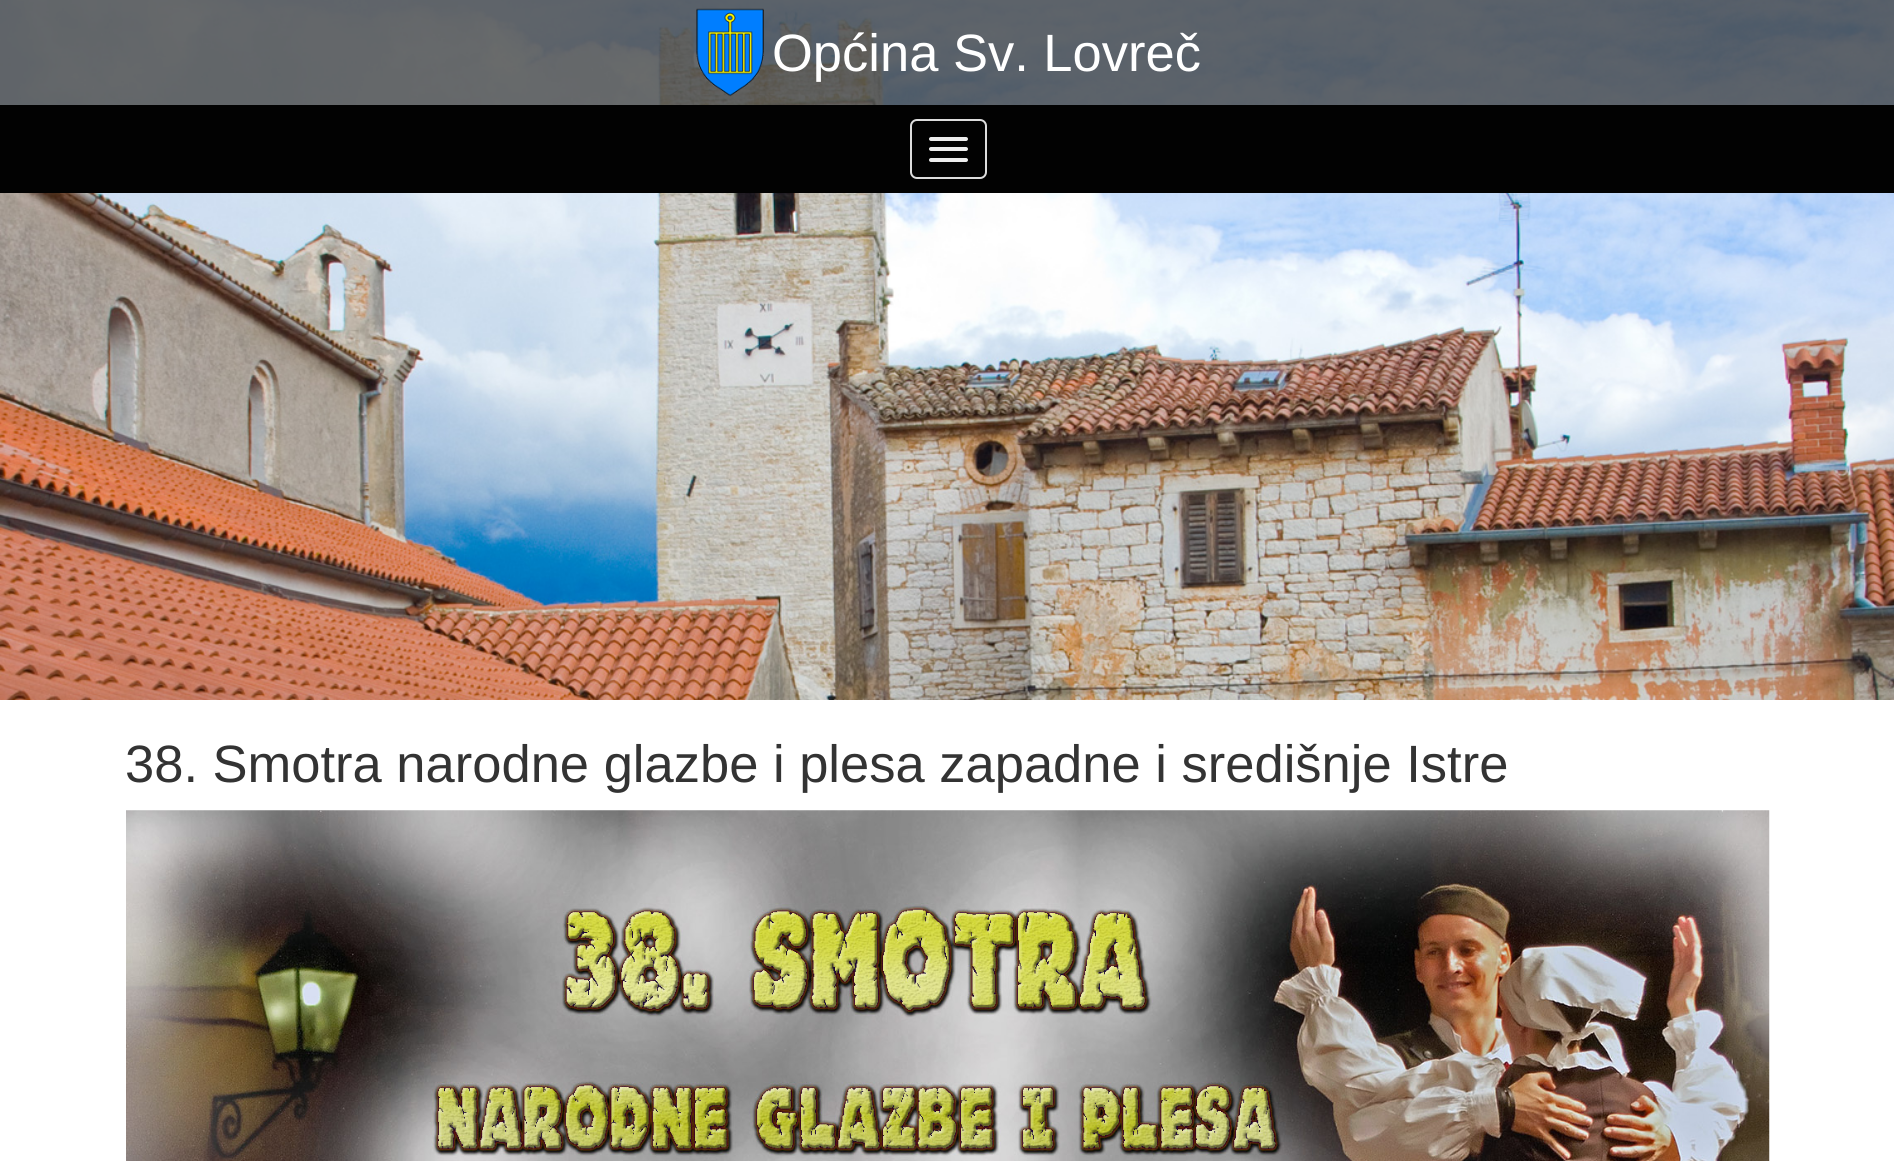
#include <cairo.h>
#include <math.h>
#include <stddef.h>


static void set_color(cairo_t *cr, unsigned color) {
    cairo_set_source_rgb(cr, (color >> 16) / 255.0, (color >> 8 & 255) / 255.0, (color & 255) / 255.0);
}

static void draw_text(cairo_t *cr, double x, double y, const char *s, const char *family, double size, int italic, int bold, unsigned color) {
    cairo_select_font_face(cr, family, italic ? CAIRO_FONT_SLANT_ITALIC : CAIRO_FONT_SLANT_NORMAL,
        bold ? CAIRO_FONT_WEIGHT_BOLD : CAIRO_FONT_WEIGHT_NORMAL);
    cairo_set_font_size(cr, size);
    set_color(cr, color);
    cairo_move_to(cr, x, y);
    cairo_show_text(cr, s);
}

static void fill_rect(cairo_t *cr, double x, double y, double w, double h, unsigned color) {
    set_color(cr, color);
    cairo_rectangle(cr, x, y, w, h);
    cairo_fill(cr);
}

static void rounded_rect(cairo_t *cr, double x, double y, double w, double h, double r) {
    cairo_new_sub_path(cr);
    cairo_arc(cr, x + w - r, y + h - r, r, 0, M_PI / 2);
    cairo_arc(cr, x + r, y + h - r, r, M_PI / 2, M_PI);
    cairo_arc(cr, x + r, y + r, r, M_PI, 1.5 * M_PI);
    cairo_arc(cr, x + w - r, y + r, r, 1.5 * M_PI, 2 * M_PI);
    cairo_close_path(cr);
}

static void draw_image(cairo_t *cr, const char *path, double x, double y, double w, double h) {
    cairo_surface_t *image = cairo_image_surface_create_from_png(path);
    cairo_save(cr);
    cairo_set_source_surface(cr, image, x, y);
    cairo_rectangle(cr, x, y, w, h);
    cairo_fill(cr);
    cairo_restore(cr);
    cairo_surface_destroy(image);
}

int main(void) {
    cairo_surface_t *surface = cairo_image_surface_create(CAIRO_FORMAT_RGB24, 1894, 1161);
    cairo_t *cr = cairo_create(surface);
    cairo_font_options_t *options = cairo_font_options_create();
    cairo_font_options_set_hint_metrics(options, CAIRO_HINT_METRICS_OFF);
    cairo_font_options_set_hint_style(options, CAIRO_HINT_STYLE_NONE);
    cairo_set_font_options(cr, options);
    cairo_set_miter_limit(cr, 4);
    set_color(cr, 0xFFFFFF);
    cairo_paint(cr);
    draw_image(cr, "assets/img1.png", 0, 0, 1894, 700);
    cairo_set_source_rgba(cr, 0.271, 0.278, 0.275, 0.8);
    cairo_rectangle(cr, 0, 0, 1894, 105);
    cairo_fill(cr);
    draw_image(cr, "assets/img2.png", 696, 8, 68, 89);
    draw_text(cr, 772, 71, "Općina Sv. Lovreč", "Liberation Sans", 52.5, 0, 0, 0xFFFFFF);
    fill_rect(cr, 0, 105, 1894, 88, 0x020202);
    rounded_rect(cr, 911, 120, 75, 58, 6);
    set_color(cr, 0xDDDDDD);
    cairo_stroke(cr);
    set_color(cr, 0xEEEEEE);
    rounded_rect(cr, 929, 137, 39, 4, 2);
    cairo_fill(cr);
    rounded_rect(cr, 929, 147, 39, 4, 2);
    cairo_fill(cr);
    rounded_rect(cr, 929, 158, 39, 4, 2);
    cairo_fill(cr);
    draw_text(cr, 125, 782, "38. Smotra narodne glazbe i plesa zapadne i središnje Istre", "Liberation Sans", 52.5, 0, 0, 0x333333);
    draw_image(cr, "assets/img3.png", 126, 810, 1644, 351);
    cairo_surface_write_to_png(surface, "output.png");
    cairo_font_options_destroy(options);
    cairo_destroy(cr);
    cairo_surface_destroy(surface);
    return 0;
}
